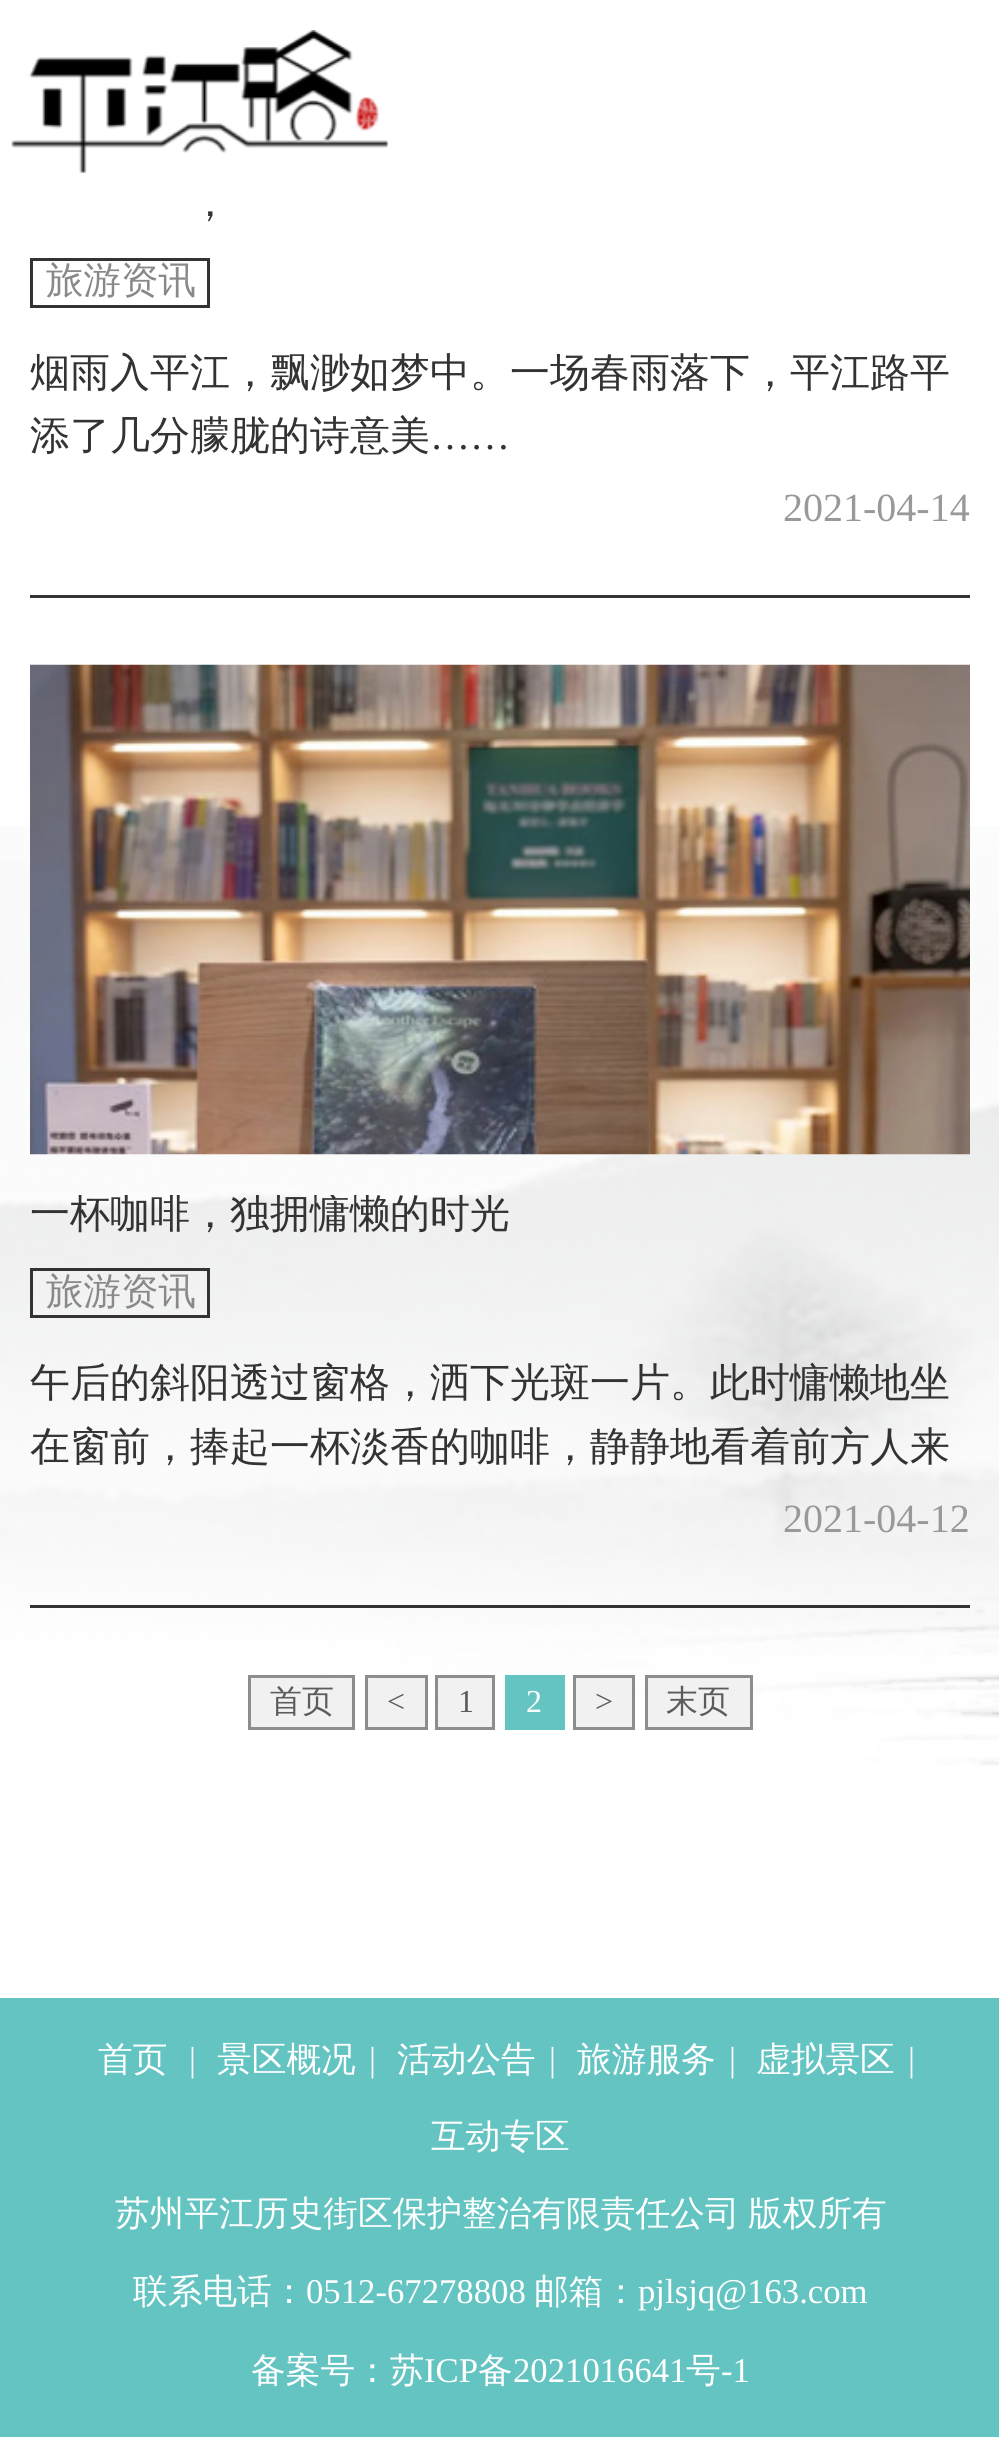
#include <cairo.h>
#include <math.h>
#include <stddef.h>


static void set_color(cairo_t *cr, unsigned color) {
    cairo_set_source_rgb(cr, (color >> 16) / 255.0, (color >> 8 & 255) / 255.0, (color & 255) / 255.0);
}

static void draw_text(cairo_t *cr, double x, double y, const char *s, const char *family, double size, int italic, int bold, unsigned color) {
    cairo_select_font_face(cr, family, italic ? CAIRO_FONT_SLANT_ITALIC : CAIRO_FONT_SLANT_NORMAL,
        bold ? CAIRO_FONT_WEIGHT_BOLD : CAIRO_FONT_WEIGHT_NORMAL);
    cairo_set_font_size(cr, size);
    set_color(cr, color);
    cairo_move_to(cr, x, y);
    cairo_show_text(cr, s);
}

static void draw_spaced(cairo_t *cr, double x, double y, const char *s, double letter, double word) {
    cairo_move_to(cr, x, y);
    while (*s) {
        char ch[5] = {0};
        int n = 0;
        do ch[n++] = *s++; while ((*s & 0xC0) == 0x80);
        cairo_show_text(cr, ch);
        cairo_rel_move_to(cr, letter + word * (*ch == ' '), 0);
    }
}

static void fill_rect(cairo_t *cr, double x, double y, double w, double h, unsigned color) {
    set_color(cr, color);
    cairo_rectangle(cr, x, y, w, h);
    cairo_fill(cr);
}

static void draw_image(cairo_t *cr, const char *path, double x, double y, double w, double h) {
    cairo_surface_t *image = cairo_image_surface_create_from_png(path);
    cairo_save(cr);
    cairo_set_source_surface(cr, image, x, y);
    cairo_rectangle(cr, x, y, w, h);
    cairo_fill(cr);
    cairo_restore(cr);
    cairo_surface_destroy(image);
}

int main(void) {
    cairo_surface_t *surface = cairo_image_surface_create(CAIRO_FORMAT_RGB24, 999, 2437);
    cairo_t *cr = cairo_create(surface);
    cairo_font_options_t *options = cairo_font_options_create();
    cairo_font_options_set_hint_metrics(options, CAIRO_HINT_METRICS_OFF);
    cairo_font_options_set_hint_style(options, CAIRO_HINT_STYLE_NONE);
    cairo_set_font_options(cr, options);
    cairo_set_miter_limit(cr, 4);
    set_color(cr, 0xFFFFFF);
    cairo_paint(cr);
    draw_image(cr, "assets/img1.png", 11, 30, 377, 143);
    draw_image(cr, "assets/img2.png", 0, 826, 999, 940);
    fill_rect(cr, 30, 595, 940, 3, 0x333333);
    draw_text(cr, 190, 216, "，", "WenQuanYi Zen Hei Medium", 40, 0, 0, 0x333333);
    cairo_rectangle(cr, 31.5, 259.5, 177, 47);
    cairo_set_line_width(cr, 3);
    cairo_stroke(cr);
    draw_text(cr, 46, 293, "旅游资讯", "WenQuanYi Zen Hei Medium", 37.5, 0, 0, 0x898989);
    draw_text(cr, 30, 386, "烟雨入平江，飘渺如梦中。一场春雨落下，平江路平", "WenQuanYi Zen Hei Medium", 40, 0, 0, 0x333333);
    draw_text(cr, 30, 449, "添了几分朦胧的诗意美", "WenQuanYi Zen Hei Medium", 40, 0, 0, 0x333333);
    draw_text(cr, 430, 449, "……", "Liberation Serif", 40, 0, 0, 0x333333);
    draw_text(cr, 783, 521, "2021-04-14", "Liberation Serif", 40, 0, 0, 0x999999);
    fill_rect(cr, 30, 1605, 940, 3, 0x333333);
    draw_image(cr, "assets/img3.png", 30, 664, 940, 491);
    cairo_save(cr);
    cairo_rectangle(cr, 30, 1195, 940, 40);
    cairo_clip(cr);
    draw_text(cr, 30, 1227, "一杯咖啡，独拥慵懒的时光", "WenQuanYi Zen Hei Medium", 40, 0, 0, 0x333333);
    cairo_restore(cr);
    cairo_rectangle(cr, 31.5, 1269.5, 177, 47);
    cairo_stroke(cr);
    draw_text(cr, 46, 1304, "旅游资讯", "WenQuanYi Zen Hei Medium", 37.5, 0, 0, 0x898989);
    draw_text(cr, 30, 1396, "午后的斜阳透过窗格，洒下光斑一片。此时慵懒地坐", "WenQuanYi Zen Hei Medium", 40, 0, 0, 0x333333);
    draw_text(cr, 30, 1460, "在窗前，捧起一杯淡香的咖啡，静静地看着前方人来", "WenQuanYi Zen Hei Medium", 40, 0, 0, 0x333333);
    draw_text(cr, 783, 1532, "2021-04-12", "Liberation Serif", 40, 0, 0, 0x999999);
    set_color(cr, 0xF1F1F1);
    cairo_rectangle(cr, 249.5, 1676.5, 104, 52);
    cairo_fill_preserve(cr);
    set_color(cr, 0x8D8D8D);
    cairo_stroke(cr);
    draw_text(cr, 270, 1712, "首页", "WenQuanYi Zen Hei Medium", 32, 0, 0, 0x5C5C5C);
    set_color(cr, 0xF1F1F1);
    cairo_rectangle(cr, 366.5, 1676.5, 60, 52);
    cairo_fill_preserve(cr);
    set_color(cr, 0x8D8D8D);
    cairo_stroke(cr);
    draw_text(cr, 387, 1712, "<", "Liberation Serif", 32, 0, 0, 0x5C5C5C);
    set_color(cr, 0xF1F1F1);
    cairo_rectangle(cr, 436.5, 1676.5, 57, 52);
    cairo_fill_preserve(cr);
    set_color(cr, 0x8D8D8D);
    cairo_stroke(cr);
    draw_text(cr, 458, 1712, "1", "Liberation Serif", 32, 0, 0, 0x5C5C5C);
    fill_rect(cr, 505, 1675, 60, 55, 0x63C4C1);
    draw_text(cr, 526, 1712, "2", "Liberation Serif", 32, 0, 0, 0xFFFFFF);
    set_color(cr, 0xF1F1F1);
    cairo_rectangle(cr, 574.5, 1676.5, 59, 52);
    cairo_fill_preserve(cr);
    set_color(cr, 0x8D8D8D);
    cairo_stroke(cr);
    draw_text(cr, 595, 1712, ">", "Liberation Serif", 32, 0, 0, 0x5C5C5C);
    set_color(cr, 0xF1F1F1);
    cairo_rectangle(cr, 646.5, 1676.5, 105, 52);
    cairo_fill_preserve(cr);
    set_color(cr, 0x8D8D8D);
    cairo_stroke(cr);
    draw_text(cr, 666, 1712, "末页", "WenQuanYi Zen Hei Medium", 32, 0, 0, 0x5C5C5C);
    fill_rect(cr, 0, 1998, 999, 439, 0x63C4C1);
    draw_text(cr, 98, 2071, "首页", "WenQuanYi Zen Hei Medium", 34.7, 0, 0, 0xFFFFFF);
    draw_text(cr, 189, 2071, "|", "Liberation Serif", 34.7, 0, 0, 0xFFFFFF);
    draw_text(cr, 217, 2071, "景区概况", "WenQuanYi Zen Hei Medium", 34.7, 0, 0, 0xFFFFFF);
    draw_text(cr, 369, 2071, "|", "Liberation Serif", 34.7, 0, 0, 0xFFFFFF);
    draw_text(cr, 397, 2071, "活动公告", "WenQuanYi Zen Hei Medium", 34.7, 0, 0, 0xFFFFFF);
    draw_text(cr, 549, 2071, "|", "Liberation Serif", 34.7, 0, 0, 0xFFFFFF);
    draw_text(cr, 577, 2071, "旅游服务", "WenQuanYi Zen Hei Medium", 34.7, 0, 0, 0xFFFFFF);
    draw_text(cr, 729, 2071, "|", "Liberation Serif", 34.7, 0, 0, 0xFFFFFF);
    draw_text(cr, 756, 2071, "虚拟景区", "WenQuanYi Zen Hei Medium", 34.7, 0, 0, 0xFFFFFF);
    draw_text(cr, 908, 2071, "|", "Liberation Serif", 34.7, 0, 0, 0xFFFFFF);
    draw_text(cr, 431, 2148, "互动专区", "WenQuanYi Zen Hei Medium", 34.7, 0, 0, 0xFFFFFF);
    draw_spaced(cr, 115, 2225, "苏州平江历史街区保护整治有限责任公司 版权所有", 0, -2);
    draw_text(cr, 133, 2303, "联系电话：", "WenQuanYi Zen Hei Medium", 34.7, 0, 0, 0xFFFFFF);
    draw_text(cr, 306, 2303, "0512-67278808", "Liberation Serif", 34.7, 0, 0, 0xFFFFFF);
    draw_text(cr, 534, 2303, "邮箱：", "WenQuanYi Zen Hei Medium", 34.7, 0, 0, 0xFFFFFF);
    draw_text(cr, 638, 2303, "pjlsjq@163.com", "Liberation Serif", 34.7, 0, 0, 0xFFFFFF);
    draw_text(cr, 251, 2382, "备案号：苏", "WenQuanYi Zen Hei Medium", 34.7, 0, 0, 0xFFFFFF);
    draw_text(cr, 424, 2382, "ICP", "Liberation Serif", 34.7, 0, 0, 0xFFFFFF);
    draw_text(cr, 478, 2382, "备", "WenQuanYi Zen Hei Medium", 34.7, 0, 0, 0xFFFFFF);
    draw_text(cr, 513, 2382, "2021016641", "Liberation Serif", 34.7, 0, 0, 0xFFFFFF);
    draw_text(cr, 686, 2382, "号", "WenQuanYi Zen Hei Medium", 34.7, 0, 0, 0xFFFFFF);
    draw_text(cr, 721, 2382, "-1", "Liberation Serif", 34.7, 0, 0, 0xFFFFFF);
    cairo_surface_write_to_png(surface, "output.png");
    cairo_font_options_destroy(options);
    cairo_destroy(cr);
    cairo_surface_destroy(surface);
    return 0;
}
